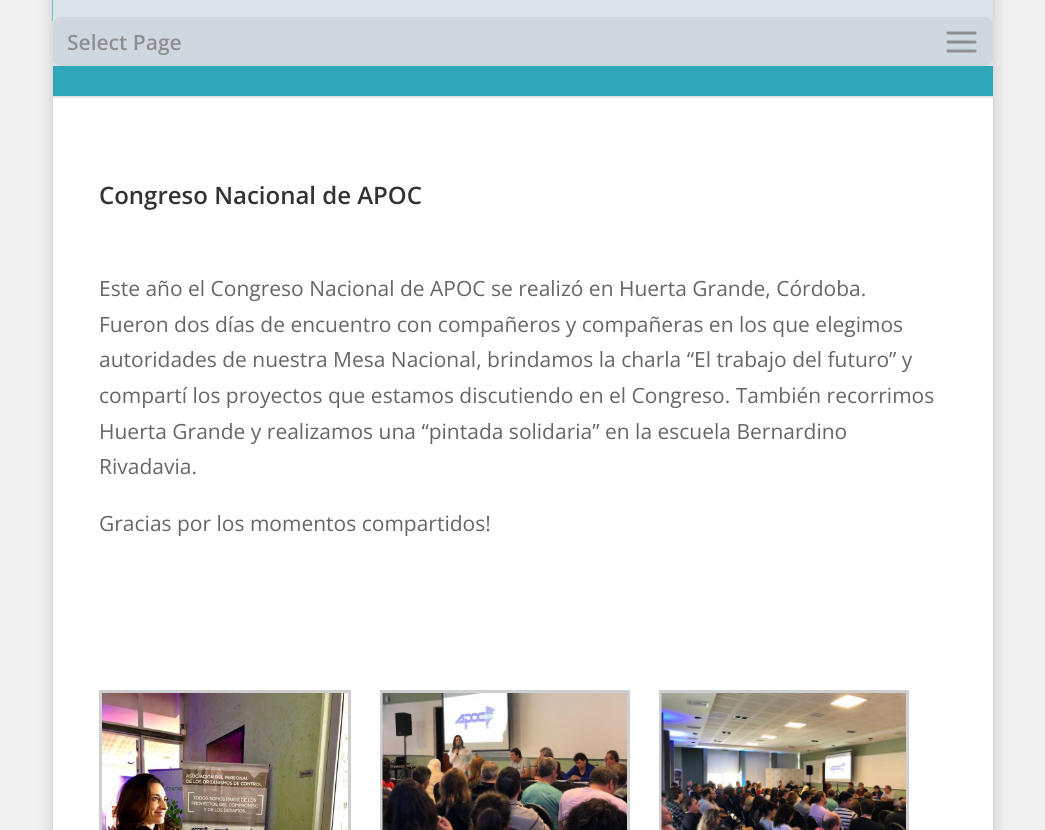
#include <cairo.h>
#include <math.h>
#include <stddef.h>


static void set_color(cairo_t *cr, unsigned color) {
    cairo_set_source_rgb(cr, (color >> 16) / 255.0, (color >> 8 & 255) / 255.0, (color & 255) / 255.0);
}

static void draw_text(cairo_t *cr, double x, double y, const char *s, const char *family, double size, int italic, int bold, unsigned color) {
    cairo_select_font_face(cr, family, italic ? CAIRO_FONT_SLANT_ITALIC : CAIRO_FONT_SLANT_NORMAL,
        bold ? CAIRO_FONT_WEIGHT_BOLD : CAIRO_FONT_WEIGHT_NORMAL);
    cairo_set_font_size(cr, size);
    set_color(cr, color);
    cairo_move_to(cr, x, y);
    cairo_show_text(cr, s);
}

static void fill_rect(cairo_t *cr, double x, double y, double w, double h, unsigned color) {
    set_color(cr, color);
    cairo_rectangle(cr, x, y, w, h);
    cairo_fill(cr);
}

static void rounded_rect(cairo_t *cr, double x, double y, double w, double h, double r) {
    cairo_new_sub_path(cr);
    cairo_arc(cr, x + w - r, y + h - r, r, 0, M_PI / 2);
    cairo_arc(cr, x + r, y + h - r, r, M_PI / 2, M_PI);
    cairo_arc(cr, x + r, y + r, r, M_PI, 1.5 * M_PI);
    cairo_arc(cr, x + w - r, y + r, r, 1.5 * M_PI, 2 * M_PI);
    cairo_close_path(cr);
}

static void draw_shadow(cairo_t *cr, double x, double y, double w, double h, double r, double blur, double alpha) {
    cairo_push_group_with_content(cr, CAIRO_CONTENT_ALPHA);
    cairo_set_operator(cr, CAIRO_OPERATOR_SOURCE);
    for (int i = 15; i >= -15 && fmin(w, h) + blur * i / 3 > 0; i -= 2) {
        double e = blur * i / 6;
        cairo_set_source_rgba(cr, 0, 0, 0, alpha * erfc((i - 1) / 8.5) / 2);
        rounded_rect(cr, x - e, y - e, w + 2 * e, h + 2 * e, fmax(0, fmin(r + e + blur * .6, fmin(w, h) / 2 + e)));
        cairo_fill(cr);
    }
    cairo_pattern_t *soft = cairo_pop_group(cr);
    cairo_mask(cr, soft);
    cairo_pattern_destroy(soft);
}

static void draw_image(cairo_t *cr, const char *path, double x, double y, double w, double h) {
    cairo_surface_t *image = cairo_image_surface_create_from_png(path);
    cairo_save(cr);
    cairo_set_source_surface(cr, image, x, y);
    cairo_rectangle(cr, x, y, w, h);
    cairo_fill(cr);
    cairo_restore(cr);
    cairo_surface_destroy(image);
}

int main(void) {
    cairo_surface_t *surface = cairo_image_surface_create(CAIRO_FORMAT_RGB24, 1045, 830);
    cairo_t *cr = cairo_create(surface);
    cairo_font_options_t *options = cairo_font_options_create();
    cairo_font_options_set_hint_metrics(options, CAIRO_HINT_METRICS_OFF);
    cairo_font_options_set_hint_style(options, CAIRO_HINT_STYLE_NONE);
    cairo_set_font_options(cr, options);
    cairo_set_miter_limit(cr, 4);
    set_color(cr, 0xF1F1F1);
    cairo_paint(cr);
    set_color(cr, 0x000000);
    draw_shadow(cr, 53, -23, 940, 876, 0, 7.5, 0.2);
    fill_rect(cr, 53, 96, 940, 2, 0xE6E6E6);
    fill_rect(cr, 53, 66, 940, 30, 0x2FA7B9);
    draw_image(cr, "assets/img1.png", 52, 0, 1, 21);
    fill_rect(cr, 53, 0, 940, 66, 0xDAE3EA);
    set_color(cr, 0xCFD8DE);
    rounded_rect(cr, 53, 17, 940, 49, 8);
    cairo_fill(cr);
    draw_text(cr, 67, 50, "Select Page", "Open Sans SemiBold", 21, 0, 0, 0x8F8F91);
    draw_image(cr, "assets/img2.png", 946, 31, 31, 22);
    fill_rect(cr, 53, 98, 940, 732, 0xFFFFFF);
    draw_text(cr, 99, 204, "Congreso Nacional de APOC", "Open Sans SemiBold", 24, 0, 0, 0x333333);
    draw_text(cr, 99, 296, "Este año el Congreso Nacional de APOC se realizó en Huerta Grande, Córdoba.", "Open Sans", 21, 0, 0, 0x666666);
    draw_text(cr, 99, 332, "Fueron dos días de encuentro con compañeros y compañeras en los que elegimos", "Open Sans", 21, 0, 0, 0x666666);
    draw_text(cr, 99, 367, "autoridades de nuestra Mesa Nacional, brindamos la charla “El trabajo del futuro” y", "Open Sans", 21, 0, 0, 0x666666);
    draw_text(cr, 99, 403, "compartí los proyectos que estamos discutiendo en el Congreso. También recorrimos", "Open Sans", 21, 0, 0, 0x666666);
    draw_text(cr, 99, 439, "Huerta Grande y realizamos una “pintada solidaria” en la escuela Bernardino", "Open Sans", 21, 0, 0, 0x666666);
    draw_text(cr, 99, 474, "Rivadavia.", "Open Sans", 21, 0, 0, 0x666666);
    draw_text(cr, 99, 531, "Gracias por los momentos compartidos!", "Open Sans", 21, 0, 0, 0x666666);
    cairo_rectangle(cr, 100.5, 691.5, 249, 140);
    set_color(cr, 0xCFCFCF);
    cairo_set_line_width(cr, 3);
    cairo_stroke(cr);
    draw_image(cr, "assets/img3.png", 102, 693, 246, 137);
    cairo_rectangle(cr, 381.5, 691.5, 247, 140);
    cairo_stroke(cr);
    draw_image(cr, "assets/img4.png", 382, 693, 245, 137);
    cairo_rectangle(cr, 660.5, 691.5, 247, 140);
    cairo_stroke(cr);
    draw_image(cr, "assets/img5.png", 661, 693, 245, 137);
    cairo_surface_write_to_png(surface, "output.png");
    cairo_font_options_destroy(options);
    cairo_destroy(cr);
    cairo_surface_destroy(surface);
    return 0;
}
